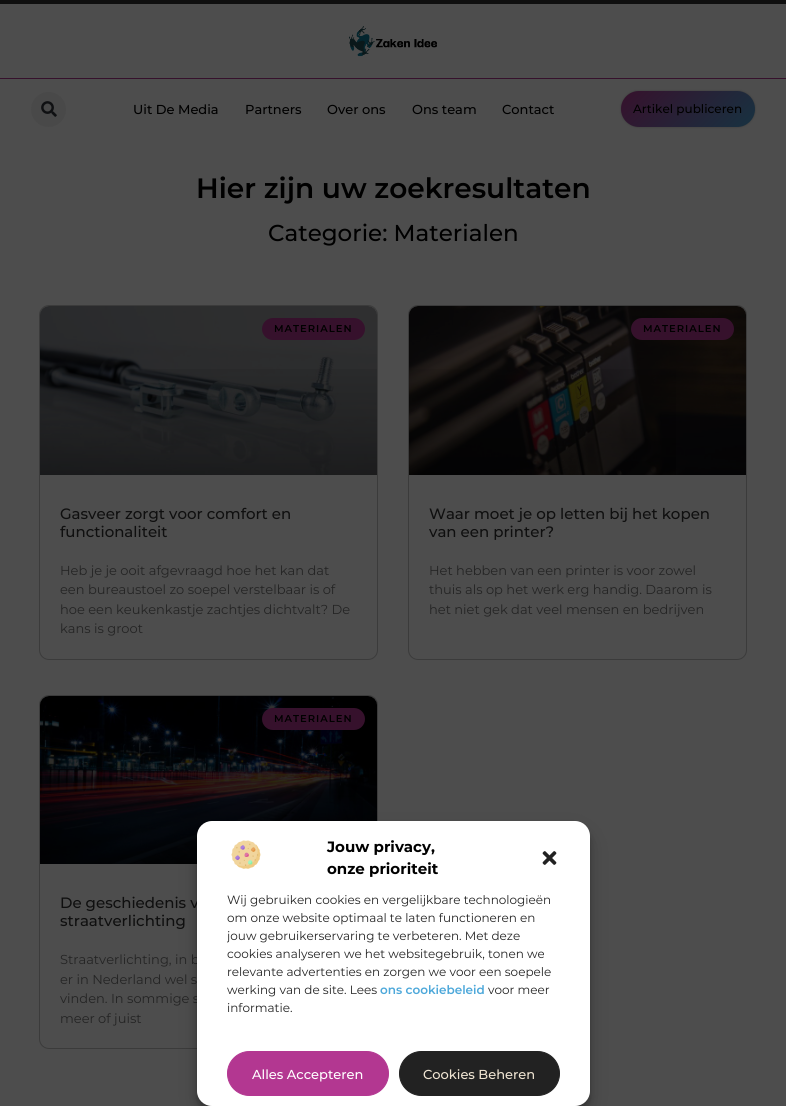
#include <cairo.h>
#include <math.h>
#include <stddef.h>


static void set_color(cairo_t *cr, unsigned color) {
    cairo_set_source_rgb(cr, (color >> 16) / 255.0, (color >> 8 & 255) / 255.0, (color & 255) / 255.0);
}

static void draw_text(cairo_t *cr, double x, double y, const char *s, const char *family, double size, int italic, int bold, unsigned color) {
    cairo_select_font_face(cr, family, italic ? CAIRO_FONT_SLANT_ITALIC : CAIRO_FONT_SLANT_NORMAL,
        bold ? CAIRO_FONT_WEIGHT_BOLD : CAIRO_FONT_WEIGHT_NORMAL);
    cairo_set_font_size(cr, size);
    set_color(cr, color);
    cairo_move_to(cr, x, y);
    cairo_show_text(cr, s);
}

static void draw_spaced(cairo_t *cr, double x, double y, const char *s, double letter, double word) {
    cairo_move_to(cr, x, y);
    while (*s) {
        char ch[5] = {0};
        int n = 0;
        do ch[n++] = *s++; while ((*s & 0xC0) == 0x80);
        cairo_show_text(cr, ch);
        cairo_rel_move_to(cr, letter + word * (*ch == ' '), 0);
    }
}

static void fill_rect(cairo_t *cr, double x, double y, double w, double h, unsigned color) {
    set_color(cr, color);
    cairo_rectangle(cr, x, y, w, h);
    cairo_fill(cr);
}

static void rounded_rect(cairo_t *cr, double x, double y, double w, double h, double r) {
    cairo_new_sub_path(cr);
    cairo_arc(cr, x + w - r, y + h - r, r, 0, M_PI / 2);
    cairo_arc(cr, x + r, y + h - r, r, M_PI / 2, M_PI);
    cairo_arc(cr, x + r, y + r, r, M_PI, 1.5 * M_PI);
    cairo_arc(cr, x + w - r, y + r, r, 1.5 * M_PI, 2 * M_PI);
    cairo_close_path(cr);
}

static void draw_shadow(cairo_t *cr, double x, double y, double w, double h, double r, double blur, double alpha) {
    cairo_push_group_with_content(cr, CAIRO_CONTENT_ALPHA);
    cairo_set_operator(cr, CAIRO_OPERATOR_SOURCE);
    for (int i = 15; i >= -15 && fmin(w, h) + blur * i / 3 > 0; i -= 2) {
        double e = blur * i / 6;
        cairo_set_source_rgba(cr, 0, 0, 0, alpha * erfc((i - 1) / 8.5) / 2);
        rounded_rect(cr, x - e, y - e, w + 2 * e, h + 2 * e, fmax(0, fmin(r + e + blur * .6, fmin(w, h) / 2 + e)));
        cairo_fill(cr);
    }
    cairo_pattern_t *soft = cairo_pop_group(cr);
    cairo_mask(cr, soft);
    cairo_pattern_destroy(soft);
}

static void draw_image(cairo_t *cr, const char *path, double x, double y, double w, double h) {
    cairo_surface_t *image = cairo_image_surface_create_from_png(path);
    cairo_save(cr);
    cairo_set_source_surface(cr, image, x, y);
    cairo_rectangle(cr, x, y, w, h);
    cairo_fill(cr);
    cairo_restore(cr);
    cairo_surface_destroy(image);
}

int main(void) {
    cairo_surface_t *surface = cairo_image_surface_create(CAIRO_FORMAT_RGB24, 786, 1106);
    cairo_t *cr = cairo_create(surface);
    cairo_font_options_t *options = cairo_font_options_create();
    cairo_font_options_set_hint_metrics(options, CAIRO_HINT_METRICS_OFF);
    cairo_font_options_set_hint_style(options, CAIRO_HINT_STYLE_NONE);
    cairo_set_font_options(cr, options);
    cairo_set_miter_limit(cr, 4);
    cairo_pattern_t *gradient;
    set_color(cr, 0x4D4D4D);
    cairo_paint(cr);
    fill_rect(cr, 0, 0, 786, 4, 0x0F0F0F);
    fill_rect(cr, 0, 78, 786, 1, 0x36112C);
    draw_image(cr, "assets/img1.png", 349, 26, 88, 31);
    set_color(cr, 0x494949);
    cairo_arc(cr, 48.5, 109.5, 17.5, 0, 2 * M_PI);
    cairo_fill(cr);
    draw_image(cr, "assets/img2.png", 41, 101, 16, 16);
    draw_text(cr, 133, 114, "Uit De Media", "Montserrat Medium", 13, 0, 0, 0x000000);
    draw_text(cr, 245, 114, "Partners", "Montserrat Medium", 13, 0, 0, 0x000000);
    draw_text(cr, 327, 114, "Over ons", "Montserrat Medium", 13, 0, 0, 0x000000);
    draw_text(cr, 412, 114, "Ons team", "Montserrat Medium", 13, 0, 0, 0x000000);
    draw_text(cr, 502, 114, "Contact", "Montserrat Medium", 13, 0, 0, 0x000000);
    set_color(cr, 0x000000);
    draw_shadow(cr, 621, 91, 134, 36, 18, 1, 0.25);
    gradient = cairo_pattern_create_linear(646, 67, 731, 152);
    cairo_pattern_add_color_stop_rgba(gradient, 0, 0.212, 0.067, 0.173, 1);
    cairo_pattern_add_color_stop_rgba(gradient, 1, 0.09, 0.196, 0.255, 1);
    cairo_set_source(cr, gradient);
    cairo_pattern_destroy(gradient);
    rounded_rect(cr, 621, 91, 134, 36, 18);
    cairo_fill(cr);
    draw_text(cr, 633, 113, "Artikel publiceren", "Montserrat Medium", 12, 0, 0, 0x000000);
    draw_text(cr, 196, 198, "Hier zijn uw zoekresultaten", "Montserrat SemiBold", 28, 0, 0, 0x000000);
    draw_text(cr, 268, 241, "Categorie: Materialen", "Montserrat Medium", 23, 0, 0, 0x000000);
    rounded_rect(cr, 39.5, 305.5, 338, 354, 9.5);
    set_color(cr, 0x3B3B3B);
    cairo_set_line_width(cr, 1);
    cairo_stroke(cr);
    draw_image(cr, "assets/img3.png", 40, 306, 337, 169);
    gradient = cairo_pattern_create_linear(209, 475, 209, 306);
    cairo_pattern_add_color_stop_rgba(gradient, 0, 0, 0, 0, 0.35);
    cairo_pattern_add_color_stop_rgba(gradient, 0.75, 0, 0, 0, 0);
    cairo_set_source(cr, gradient);
    cairo_pattern_destroy(gradient);
    cairo_rectangle(cr, 40, 369, 337, 106);
    cairo_fill(cr);
    set_color(cr, 0x36112C);
    rounded_rect(cr, 262, 318, 103, 22, 11);
    cairo_fill(cr);
    cairo_select_font_face(cr, "Montserrat SemiBold", CAIRO_FONT_SLANT_NORMAL, CAIRO_FONT_WEIGHT_NORMAL);
    cairo_set_font_size(cr, 10);
    set_color(cr, 0x000000);
    draw_spaced(cr, 274, 332, "MATERIALEN", 1, 0);
    draw_text(cr, 60, 519, "Gasveer zorgt voor comfort en", "Montserrat Medium", 15, 0, 0, 0x0F0F0F);
    draw_text(cr, 60, 537, "functionaliteit", "Montserrat Medium", 15, 0, 0, 0x0F0F0F);
    draw_text(cr, 60, 575, "Heb je je ooit afgevraagd hoe het kan dat", "Montserrat", 13, 0, 0, 0x242424);
    draw_text(cr, 60, 594, "een bureaustoel zo soepel verstelbaar is of", "Montserrat", 13, 0, 0, 0x242424);
    draw_text(cr, 60, 614, "hoe een keukenkastje zachtjes dichtvalt? De", "Montserrat", 13, 0, 0, 0x242424);
    draw_text(cr, 60, 633, "kans is groot", "Montserrat", 13, 0, 0, 0x242424);
    rounded_rect(cr, 408.5, 305.5, 338, 354, 9.5);
    set_color(cr, 0x3B3B3B);
    cairo_stroke(cr);
    draw_image(cr, "assets/img4.png", 409, 306, 337, 169);
    gradient = cairo_pattern_create_linear(578, 475, 578, 306);
    cairo_pattern_add_color_stop_rgba(gradient, 0, 0, 0, 0, 0.35);
    cairo_pattern_add_color_stop_rgba(gradient, 0.75, 0, 0, 0, 0);
    cairo_set_source(cr, gradient);
    cairo_pattern_destroy(gradient);
    cairo_rectangle(cr, 409, 369, 267, 106);
    cairo_fill(cr);
    set_color(cr, 0x36112C);
    rounded_rect(cr, 631, 318, 103, 22, 11);
    cairo_fill(cr);
    cairo_select_font_face(cr, "Montserrat SemiBold", CAIRO_FONT_SLANT_NORMAL, CAIRO_FONT_WEIGHT_NORMAL);
    cairo_set_font_size(cr, 10);
    set_color(cr, 0x000000);
    draw_spaced(cr, 643, 332, "MATERIALEN", 1, 0);
    draw_text(cr, 429, 519, "Waar moet je op letten bij het kopen", "Montserrat Medium", 15, 0, 0, 0x0F0F0F);
    draw_text(cr, 429, 537, "van een printer?", "Montserrat Medium", 15, 0, 0, 0x0F0F0F);
    draw_text(cr, 429, 575, "Het hebben van een printer is voor zowel", "Montserrat", 13, 0, 0, 0x242424);
    draw_text(cr, 429, 594, "thuis als op het werk erg handig. Daarom is", "Montserrat", 13, 0, 0, 0x242424);
    draw_text(cr, 429, 614, "het niet gek dat veel mensen en bedrijven", "Montserrat", 13, 0, 0, 0x242424);
    rounded_rect(cr, 39.5, 695.5, 338, 353, 9.5);
    set_color(cr, 0x3B3B3B);
    cairo_stroke(cr);
    draw_image(cr, "assets/img5.png", 40, 696, 337, 168);
    gradient = cairo_pattern_create_linear(209, 864, 209, 696);
    cairo_pattern_add_color_stop_rgba(gradient, 0, 0, 0, 0, 0.35);
    cairo_pattern_add_color_stop_rgba(gradient, 0.75, 0, 0, 0, 0);
    cairo_set_source(cr, gradient);
    cairo_pattern_destroy(gradient);
    cairo_rectangle(cr, 40, 758, 323, 106);
    cairo_fill(cr);
    set_color(cr, 0x36112C);
    rounded_rect(cr, 262, 708, 103, 22, 11);
    cairo_fill(cr);
    cairo_select_font_face(cr, "Montserrat SemiBold", CAIRO_FONT_SLANT_NORMAL, CAIRO_FONT_WEIGHT_NORMAL);
    cairo_set_font_size(cr, 10);
    set_color(cr, 0x000000);
    draw_spaced(cr, 274, 722, "MATERIALEN", 1, 0);
    draw_text(cr, 60, 908, "De geschiedenis v", "Montserrat Medium", 15, 0, 0, 0x0F0F0F);
    draw_text(cr, 60, 926, "straatverlichting", "Montserrat Medium", 15, 0, 0, 0x0F0F0F);
    draw_text(cr, 60, 964, "Straatverlichting, in b", "Montserrat", 13, 0, 0, 0x242424);
    draw_text(cr, 60, 984, "er in Nederland wel s", "Montserrat", 13, 0, 0, 0x242424);
    draw_text(cr, 60, 1003, "vinden. In sommige s", "Montserrat", 13, 0, 0, 0x242424);
    draw_text(cr, 60, 1023, "meer of juist", "Montserrat", 13, 0, 0, 0x242424);
    set_color(cr, 0x000000);
    draw_shadow(cr, 197, 827, 393, 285, 15, 3, 0.23);
    draw_shadow(cr, 197, 831, 393, 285, 15, 10, 0.19);
    set_color(cr, 0xFFFFFF);
    rounded_rect(cr, 197, 821, 393, 285, 15);
    cairo_fill(cr);
    draw_image(cr, "assets/img6.png", 231, 840, 30, 29);
    draw_text(cr, 327, 852, "Jouw privacy,", "Montserrat", 15, 0, 1, 0x000000);
    draw_text(cr, 327, 874, "onze prioriteit", "Montserrat", 15, 0, 1, 0x000000);
    draw_image(cr, "assets/img7.png", 542, 851, 15, 14);
    draw_text(cr, 227, 904, "Wij gebruiken cookies en vergelijkbare technologieën", "Montserrat", 12, 0, 0, 0x242424);
    draw_text(cr, 227, 922, "om onze website optimaal te laten functioneren en", "Montserrat", 12, 0, 0, 0x242424);
    cairo_save(cr);
    cairo_rectangle(cr, 227, 891, 333, 140);
    cairo_clip(cr);
    draw_text(cr, 227, 940, "jouw gebruikerservaring te verbeteren. Met deze", "Montserrat", 12, 0, 0, 0x242424);
    cairo_restore(cr);
    draw_text(cr, 227, 958, "cookies analyseren we het websitegebruik, tonen we", "Montserrat", 12, 0, 0, 0x242424);
    draw_text(cr, 227, 976, "relevante advertenties en zorgen we voor een soepele", "Montserrat", 12, 0, 0, 0x242424);
    draw_text(cr, 227, 994, "werking van de site. Lees", "Montserrat", 12, 0, 0, 0x242424);
    draw_text(cr, 380, 994, "ons cookiebeleid", "Montserrat SemiBold", 12, 0, 0, 0x4DA8DA);
    draw_text(cr, 488, 994, "voor meer", "Montserrat", 12, 0, 0, 0x242424);
    draw_text(cr, 227, 1012, "informatie.", "Montserrat", 12, 0, 0, 0x242424);
    set_color(cr, 0xB33791);
    rounded_rect(cr, 227.5, 1051.5, 161, 44, 22);
    cairo_fill_preserve(cr);
    cairo_stroke(cr);
    draw_text(cr, 252, 1079, "Alles Accepteren", "Montserrat Medium", 13, 0, 0, 0xFFFFFF);
    set_color(cr, 0x222222);
    rounded_rect(cr, 399.5, 1051.5, 160, 44, 22);
    cairo_fill_preserve(cr);
    cairo_stroke(cr);
    draw_text(cr, 423, 1079, "Cookies Beheren", "Montserrat Medium", 13, 0, 0, 0xEFE4D2);
    cairo_surface_write_to_png(surface, "output.png");
    cairo_font_options_destroy(options);
    cairo_destroy(cr);
    cairo_surface_destroy(surface);
    return 0;
}
